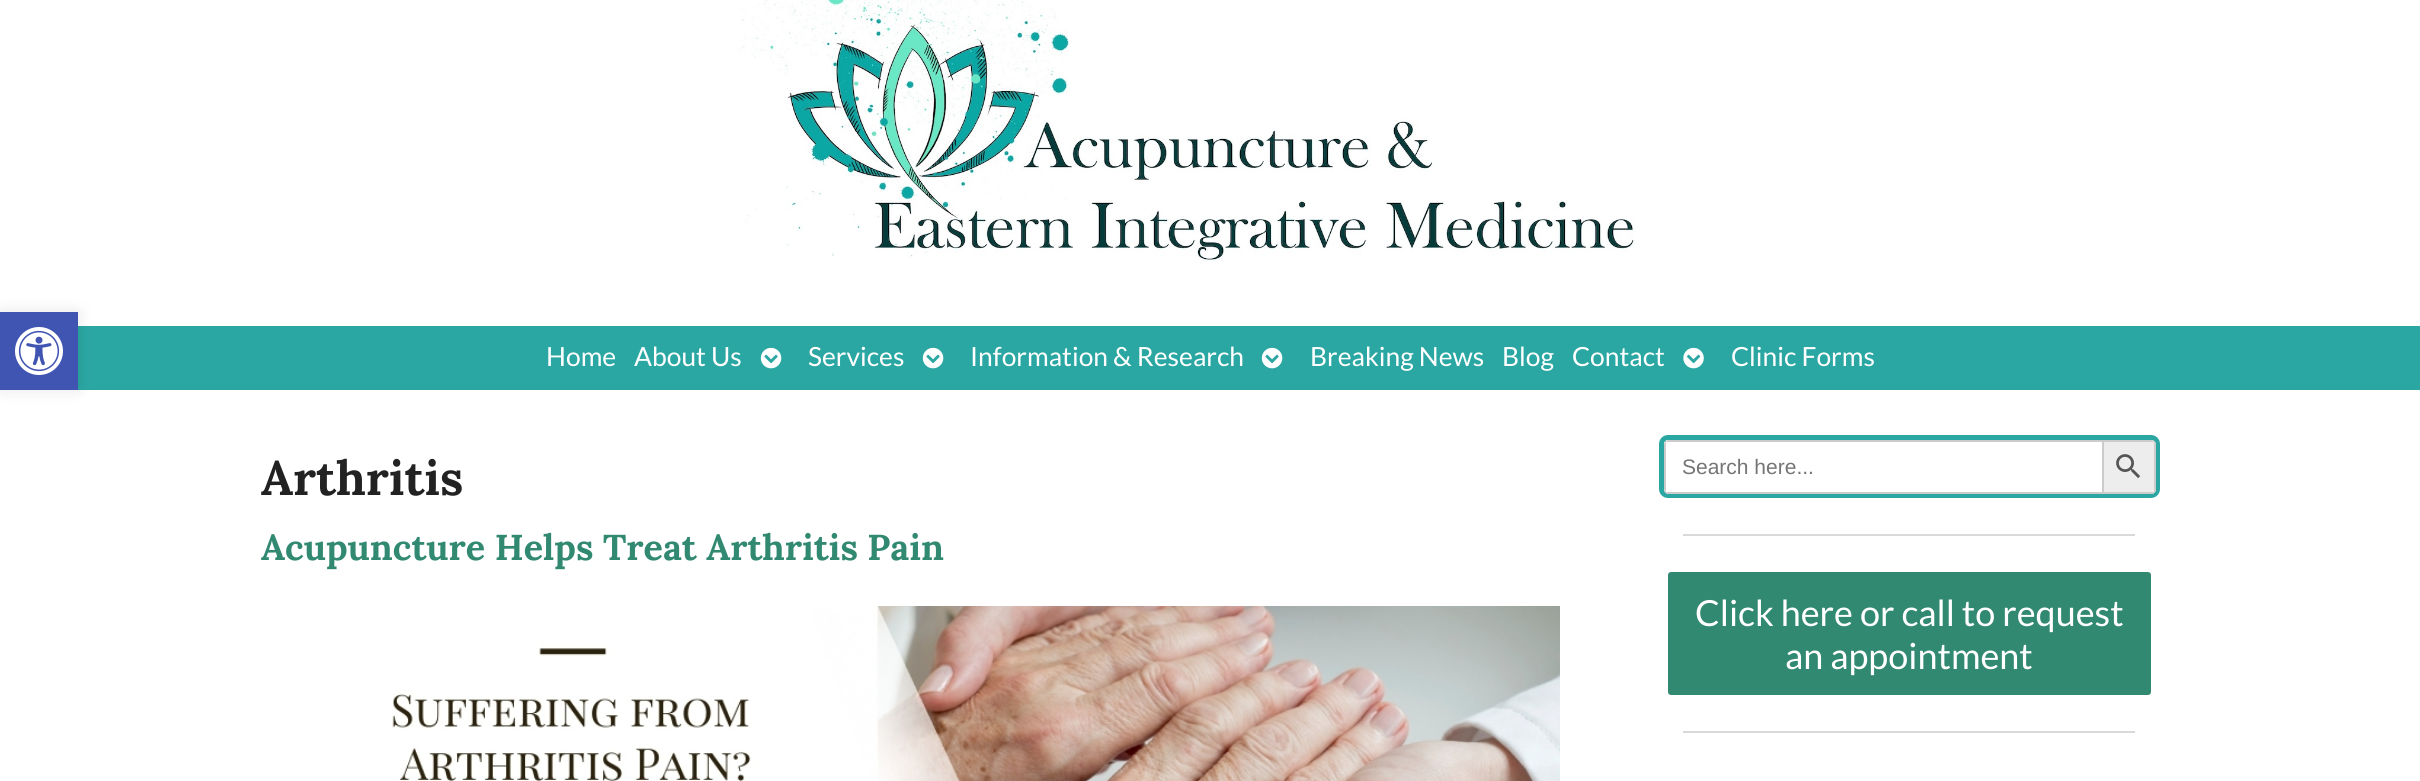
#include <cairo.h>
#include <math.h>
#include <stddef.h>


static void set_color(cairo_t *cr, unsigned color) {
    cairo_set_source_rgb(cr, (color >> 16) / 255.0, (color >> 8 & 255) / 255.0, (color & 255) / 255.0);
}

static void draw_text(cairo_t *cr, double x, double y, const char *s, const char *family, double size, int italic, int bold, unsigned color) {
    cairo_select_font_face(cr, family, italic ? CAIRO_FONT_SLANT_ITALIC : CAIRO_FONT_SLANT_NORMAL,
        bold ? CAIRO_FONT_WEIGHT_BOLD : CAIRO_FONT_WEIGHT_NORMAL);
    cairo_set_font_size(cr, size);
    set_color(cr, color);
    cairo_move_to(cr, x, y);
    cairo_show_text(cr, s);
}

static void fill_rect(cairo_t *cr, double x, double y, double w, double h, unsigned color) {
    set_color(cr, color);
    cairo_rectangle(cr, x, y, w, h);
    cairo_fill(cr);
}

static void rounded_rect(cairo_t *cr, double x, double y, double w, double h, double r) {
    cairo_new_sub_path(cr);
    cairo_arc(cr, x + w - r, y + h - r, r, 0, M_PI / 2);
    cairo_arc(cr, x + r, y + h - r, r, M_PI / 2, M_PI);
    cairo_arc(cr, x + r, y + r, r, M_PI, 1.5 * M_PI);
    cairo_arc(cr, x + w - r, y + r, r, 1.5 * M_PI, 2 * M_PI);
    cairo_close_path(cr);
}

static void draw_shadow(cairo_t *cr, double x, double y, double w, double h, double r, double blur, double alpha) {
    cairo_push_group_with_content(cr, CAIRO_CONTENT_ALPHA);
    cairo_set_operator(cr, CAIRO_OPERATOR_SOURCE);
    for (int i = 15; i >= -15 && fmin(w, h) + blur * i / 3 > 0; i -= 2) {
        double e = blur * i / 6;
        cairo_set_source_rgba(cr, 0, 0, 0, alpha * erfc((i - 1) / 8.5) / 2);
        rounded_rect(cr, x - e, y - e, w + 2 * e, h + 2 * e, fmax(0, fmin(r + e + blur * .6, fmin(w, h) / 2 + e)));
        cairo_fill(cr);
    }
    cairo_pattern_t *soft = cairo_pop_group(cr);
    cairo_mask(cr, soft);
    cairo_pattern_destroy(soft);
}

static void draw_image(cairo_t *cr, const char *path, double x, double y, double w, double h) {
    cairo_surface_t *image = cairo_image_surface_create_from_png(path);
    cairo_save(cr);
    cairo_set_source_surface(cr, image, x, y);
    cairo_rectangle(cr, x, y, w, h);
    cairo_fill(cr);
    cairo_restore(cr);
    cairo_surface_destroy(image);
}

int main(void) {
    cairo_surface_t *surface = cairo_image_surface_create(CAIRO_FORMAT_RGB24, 2420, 781);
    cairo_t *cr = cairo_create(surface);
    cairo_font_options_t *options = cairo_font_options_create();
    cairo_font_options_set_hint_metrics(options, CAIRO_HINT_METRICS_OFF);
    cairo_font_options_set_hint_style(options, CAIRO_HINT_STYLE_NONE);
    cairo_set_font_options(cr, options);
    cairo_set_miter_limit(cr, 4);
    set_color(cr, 0xFFFFFF);
    cairo_paint(cr);
    fill_rect(cr, 78, 326, 2342, 64, 0x2BA7A3);
    set_color(cr, 0x000000);
    draw_shadow(cr, 0, 312, 78, 78, 0, 7.5, 0.1);
    fill_rect(cr, 0, 312, 78, 78, 0x4054B2);
    draw_image(cr, "assets/img1.png", 15, 327, 48, 48);
    draw_image(cr, "assets/img2.png", 738, 0, 897, 262);
    draw_text(cr, 546, 366, "Home", "Lato", 26.4, 0, 0, 0xFFFFFF);
    draw_text(cr, 634, 366, "About Us", "Lato", 26.4, 0, 0, 0xFFFFFF);
    draw_image(cr, "assets/img3.png", 760, 347, 22, 22);
    draw_text(cr, 808, 366, "Services", "Lato", 26.4, 0, 0, 0xFFFFFF);
    draw_image(cr, "assets/img3.png", 922, 347, 22, 22);
    draw_text(cr, 970, 366, "Information & Research", "Lato", 26.4, 0, 0, 0xFFFFFF);
    draw_image(cr, "assets/img3.png", 1261, 347, 22, 22);
    draw_text(cr, 1310, 366, "Breaking News", "Lato", 26.4, 0, 0, 0xFFFFFF);
    draw_text(cr, 1502, 366, "Blog", "Lato", 26.4, 0, 0, 0xFFFFFF);
    draw_text(cr, 1572, 366, "Contact", "Lato", 26.4, 0, 0, 0xFFFFFF);
    draw_image(cr, "assets/img4.png", 1683, 347, 21, 22);
    draw_text(cr, 1731, 366, "Clinic Forms", "Lato", 26.4, 0, 0, 0xFFFFFF);
    draw_text(cr, 261, 495, "Arthritis", "Lora", 48, 0, 1, 0x222222);
    draw_text(cr, 261, 560, "Acupuncture Helps Treat Arthritis Pain", "Lora", 36, 0, 1, 0x328971);
    draw_image(cr, "assets/img5.png", 392, 606, 1168, 175);
    rounded_rect(cr, 1661.5, 437.5, 496, 58, 6.5);
    set_color(cr, 0x2AA7A3);
    cairo_set_line_width(cr, 5);
    cairo_stroke(cr);
    set_color(cr, 0xFFFFFF);
    cairo_new_path(cr);
    cairo_move_to(cr, 1669, 440);
    cairo_line_to(cr, 2102, 440);
    cairo_line_to(cr, 2102, 494);
    cairo_line_to(cr, 1669, 494);
    cairo_curve_to(cr, 1666, 494, 1664, 492, 1664, 489);
    cairo_line_to(cr, 1664, 445);
    cairo_curve_to(cr, 1664, 442, 1666, 440, 1669, 440);
    cairo_close_path(cr);
    cairo_fill(cr);
    cairo_save(cr);
    rounded_rect(cr, 1664, 440, 492, 54, 5);
    cairo_clip(cr);
    fill_rect(cr, 1664, 440, 438, 2, 0xCCCCCC);
    fill_rect(cr, 1664, 492, 438, 2, 0xCCCCCC);
    fill_rect(cr, 1664, 440, 2, 54, 0xCCCCCC);
    cairo_restore(cr);
    draw_text(cr, 1682, 474, "Search here...", "Liberation Sans", 21, 0, 0, 0x757575);
    set_color(cr, 0xEDEDED);
    cairo_new_path(cr);
    cairo_move_to(cr, 2102, 440);
    cairo_line_to(cr, 2151, 440);
    cairo_curve_to(cr, 2154, 440, 2156, 442, 2156, 445);
    cairo_line_to(cr, 2156, 489);
    cairo_curve_to(cr, 2156, 492, 2154, 494, 2151, 494);
    cairo_line_to(cr, 2102, 494);
    cairo_close_path(cr);
    cairo_fill(cr);
    set_color(cr, 0xCCCCCC);
    cairo_set_fill_rule(cr, CAIRO_FILL_RULE_EVEN_ODD);
    cairo_new_path(cr);
    cairo_move_to(cr, 2102, 440);
    cairo_line_to(cr, 2102, 494);
    cairo_line_to(cr, 2151, 494);
    cairo_curve_to(cr, 2154, 494, 2156, 492, 2156, 489);
    cairo_line_to(cr, 2156, 445);
    cairo_curve_to(cr, 2156, 442, 2154, 440, 2151, 440);
    cairo_close_path(cr);
    cairo_move_to(cr, 2104, 442);
    cairo_line_to(cr, 2104, 492);
    cairo_line_to(cr, 2154, 492);
    cairo_line_to(cr, 2154, 442);
    cairo_close_path(cr);
    cairo_fill(cr);
    draw_image(cr, "assets/img6.png", 2116, 454, 25, 25);
    fill_rect(cr, 1683, 534, 452, 2, 0xD9D9D9);
    set_color(cr, 0x328971);
    rounded_rect(cr, 1668, 572, 483, 123, 3);
    cairo_fill(cr);
    draw_text(cr, 1695, 626, "Click here or call to request", "Lato", 36, 0, 0, 0xFFFFFF);
    draw_text(cr, 1785, 669, "an appointment", "Lato", 36, 0, 0, 0xFFFFFF);
    fill_rect(cr, 1683, 731, 452, 2, 0xD9D9D9);
    cairo_surface_write_to_png(surface, "output.png");
    cairo_font_options_destroy(options);
    cairo_destroy(cr);
    cairo_surface_destroy(surface);
    return 0;
}
